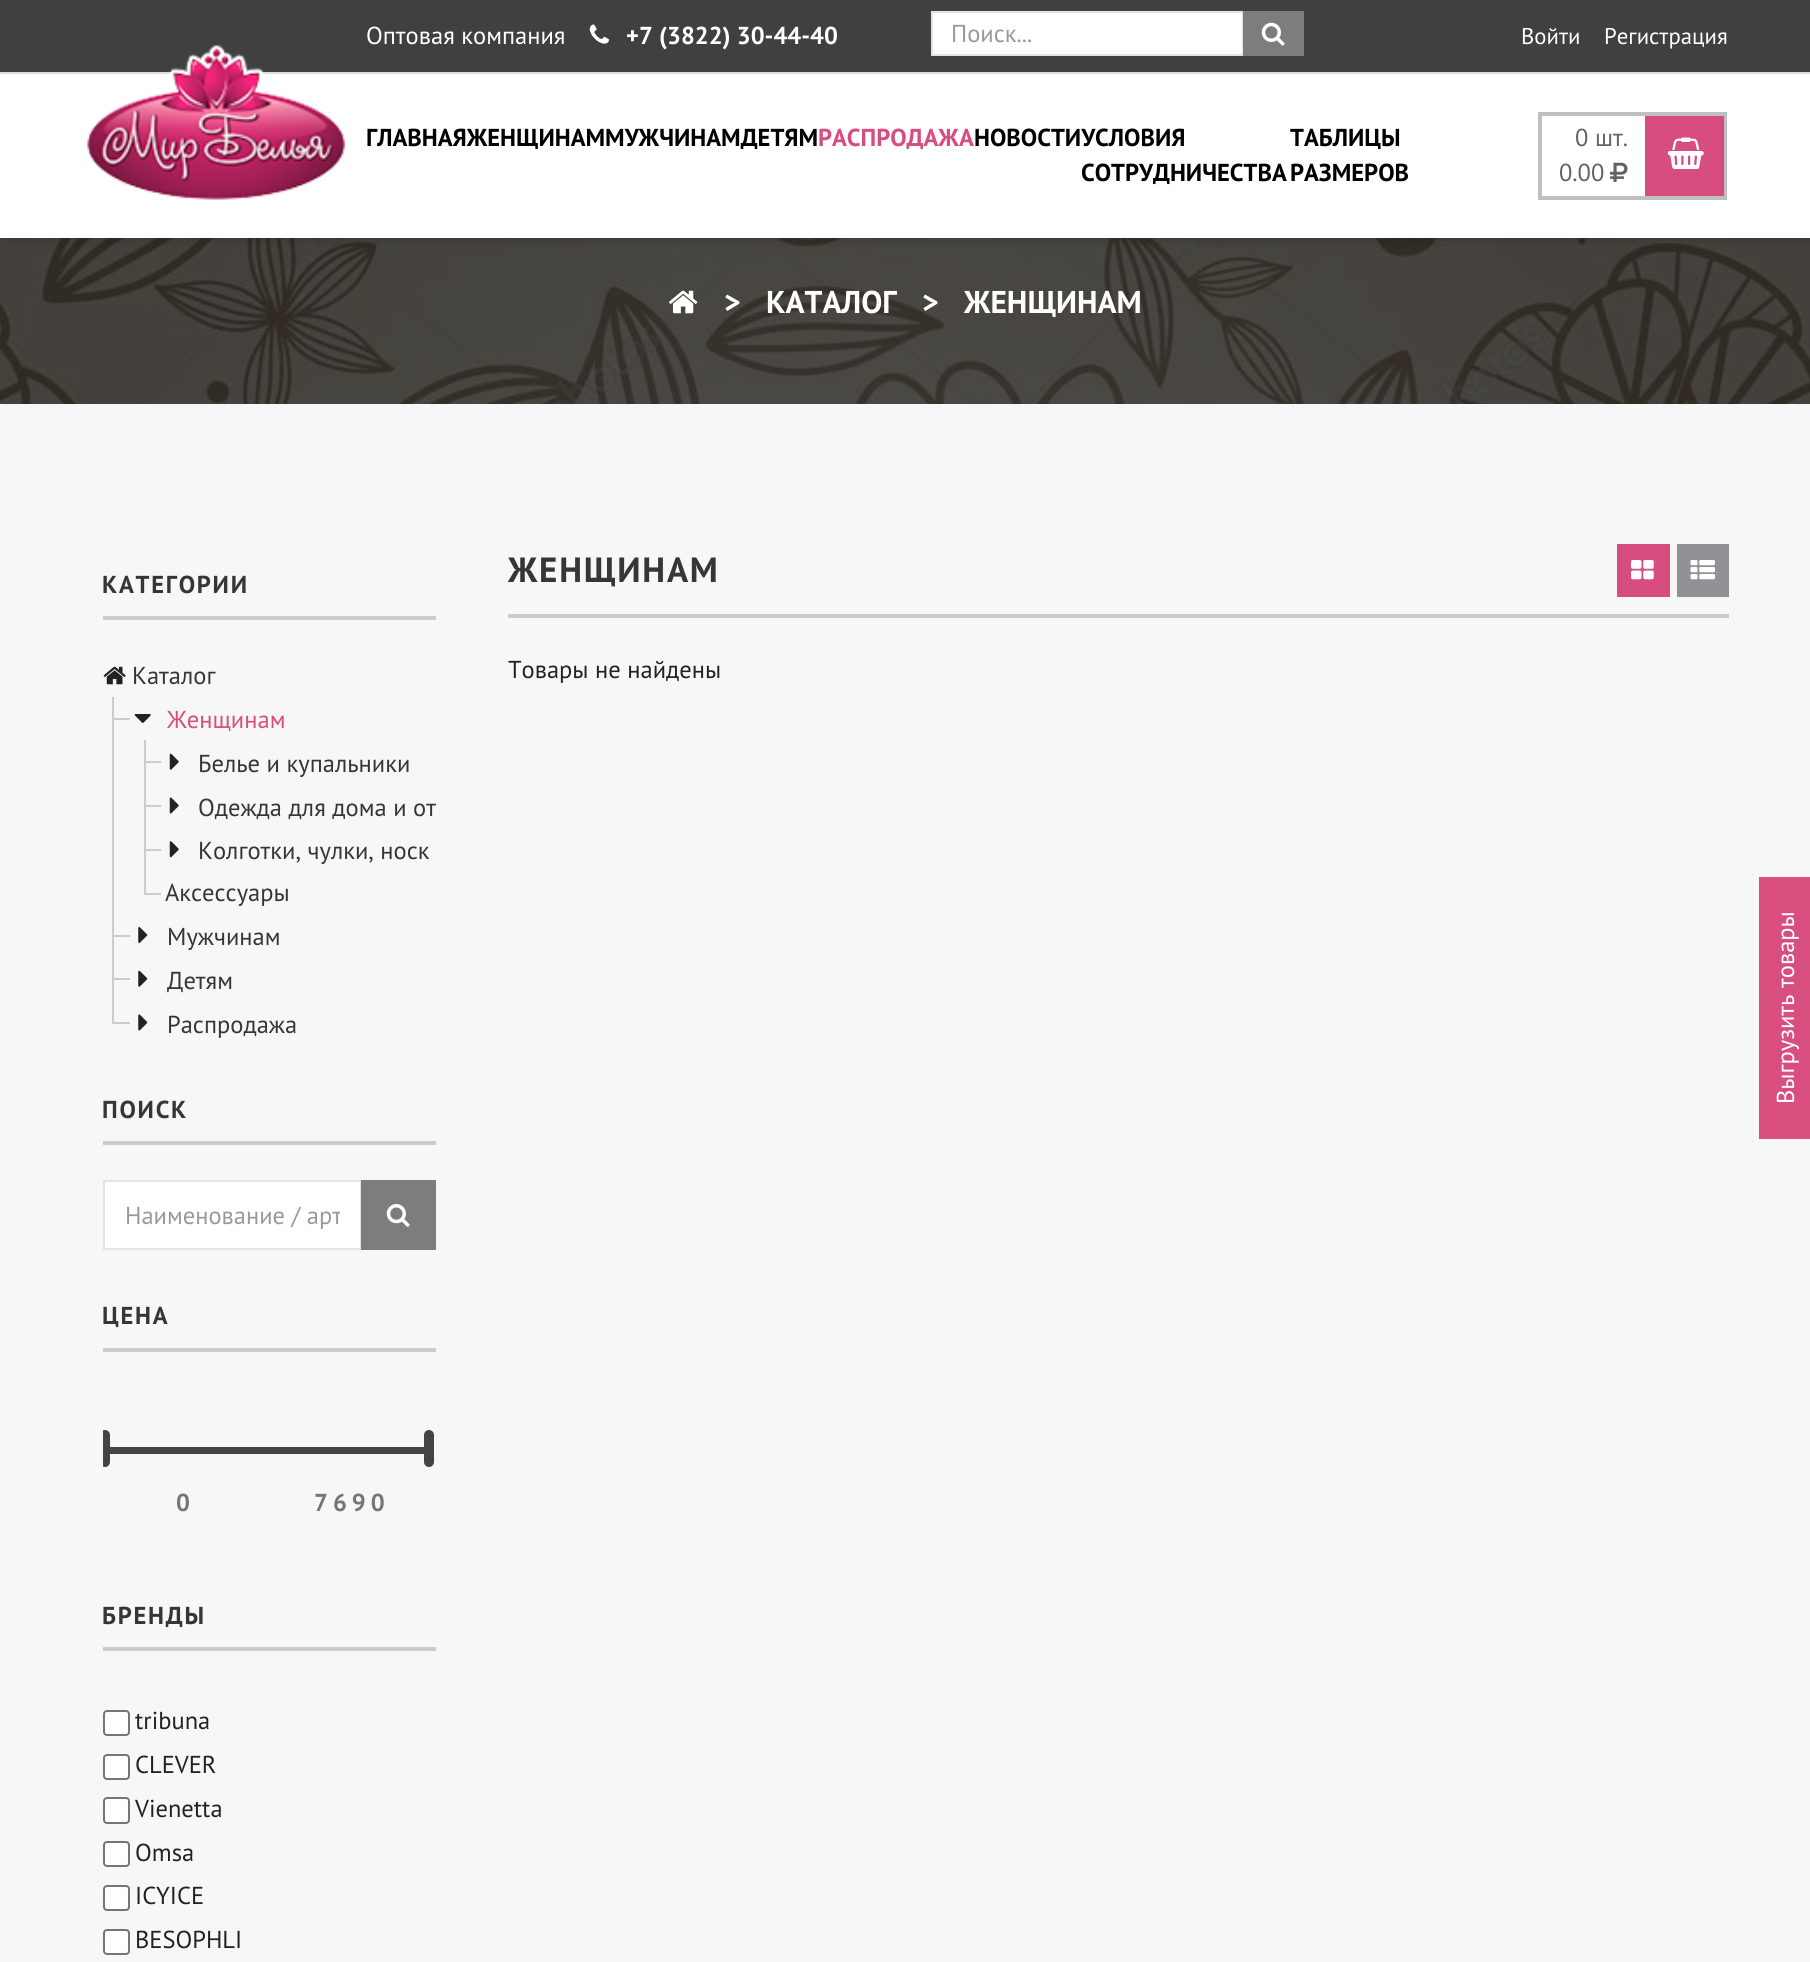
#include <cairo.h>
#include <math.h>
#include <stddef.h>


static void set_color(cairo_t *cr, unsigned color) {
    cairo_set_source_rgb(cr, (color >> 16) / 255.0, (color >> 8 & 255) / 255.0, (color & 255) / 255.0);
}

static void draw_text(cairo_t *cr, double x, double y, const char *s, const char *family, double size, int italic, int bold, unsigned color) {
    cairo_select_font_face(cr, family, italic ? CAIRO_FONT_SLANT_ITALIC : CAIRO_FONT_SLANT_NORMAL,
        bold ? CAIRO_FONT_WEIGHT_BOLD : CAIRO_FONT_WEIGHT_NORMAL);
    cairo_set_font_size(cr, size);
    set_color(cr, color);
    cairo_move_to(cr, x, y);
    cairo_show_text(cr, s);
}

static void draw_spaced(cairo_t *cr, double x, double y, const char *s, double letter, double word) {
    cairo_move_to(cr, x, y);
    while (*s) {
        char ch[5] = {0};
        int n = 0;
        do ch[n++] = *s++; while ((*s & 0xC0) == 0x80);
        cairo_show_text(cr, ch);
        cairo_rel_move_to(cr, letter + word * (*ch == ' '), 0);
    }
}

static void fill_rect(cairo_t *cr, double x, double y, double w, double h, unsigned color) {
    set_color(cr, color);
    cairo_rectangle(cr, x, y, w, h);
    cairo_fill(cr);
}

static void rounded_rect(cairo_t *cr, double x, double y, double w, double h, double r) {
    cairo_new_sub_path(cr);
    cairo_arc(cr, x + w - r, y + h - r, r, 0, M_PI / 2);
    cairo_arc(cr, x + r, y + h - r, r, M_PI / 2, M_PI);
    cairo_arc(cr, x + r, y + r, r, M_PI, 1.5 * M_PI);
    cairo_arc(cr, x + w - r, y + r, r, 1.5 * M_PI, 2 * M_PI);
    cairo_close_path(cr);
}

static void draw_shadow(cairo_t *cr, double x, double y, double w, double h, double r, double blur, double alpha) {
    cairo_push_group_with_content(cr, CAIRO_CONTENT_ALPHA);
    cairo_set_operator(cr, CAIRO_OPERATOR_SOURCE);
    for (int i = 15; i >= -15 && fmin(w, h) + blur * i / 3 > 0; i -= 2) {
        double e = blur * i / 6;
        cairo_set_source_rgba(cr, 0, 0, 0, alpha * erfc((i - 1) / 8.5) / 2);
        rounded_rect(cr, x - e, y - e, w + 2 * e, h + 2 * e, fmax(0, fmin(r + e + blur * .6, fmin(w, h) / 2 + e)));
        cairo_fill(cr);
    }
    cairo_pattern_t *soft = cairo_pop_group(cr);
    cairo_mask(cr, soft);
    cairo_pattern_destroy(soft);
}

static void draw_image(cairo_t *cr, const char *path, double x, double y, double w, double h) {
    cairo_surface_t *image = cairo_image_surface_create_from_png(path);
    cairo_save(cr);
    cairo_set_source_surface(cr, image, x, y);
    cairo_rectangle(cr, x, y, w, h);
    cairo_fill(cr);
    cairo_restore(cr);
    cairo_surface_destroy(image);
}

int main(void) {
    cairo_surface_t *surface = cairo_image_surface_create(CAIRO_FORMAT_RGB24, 1810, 1962);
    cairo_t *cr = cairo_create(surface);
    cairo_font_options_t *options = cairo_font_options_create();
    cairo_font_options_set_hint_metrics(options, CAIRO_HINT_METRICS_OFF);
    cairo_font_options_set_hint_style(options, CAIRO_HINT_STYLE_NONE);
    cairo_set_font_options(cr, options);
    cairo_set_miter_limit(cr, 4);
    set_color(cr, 0xFFFFFF);
    cairo_paint(cr);
    draw_image(cr, "assets/img6.png", 0, 238, 1810, 166);
    set_color(cr, 0x000000);
    draw_shadow(cr, 5, 5, 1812, 238, 0, 4.5, 0.1);
    fill_rect(cr, 0, 74, 1810, 164, 0xFFFFFF);
    fill_rect(cr, 0, 0, 1810, 72, 0x404040);
    fill_rect(cr, 0, 72, 1810, 2, 0xDDDDDD);
    draw_text(cr, 366, 44, "Оптовая компания", "PT Sans", 24.5, 0, 0, 0xFFFFFF);
    draw_image(cr, "assets/img1.png", 589, 24, 20, 20);
    draw_text(cr, 626, 44, "+7 (3822) 30-44-40", "PT Sans", 24.5, 0, 1, 0xFFFFFF);
    cairo_rectangle(cr, 932, 12, 311, 43);
    cairo_fill_preserve(cr);
    set_color(cr, 0xE3E3E3);
    cairo_stroke(cr);
    draw_text(cr, 951, 42, "Поиск...", "PT Sans", 24.5, 0, 0, 0x999999);
    fill_rect(cr, 1243, 11, 61, 45, 0x7D7D7D);
    draw_image(cr, "assets/img2.png", 1261, 22, 24, 24);
    draw_text(cr, 1521, 44, "Войти", "PT Sans", 22.75, 0, 0, 0xFFFFFF);
    draw_text(cr, 1604, 44, "Регистрация", "PT Sans", 22.75, 0, 0, 0xFFFFFF);
    draw_image(cr, "assets/img3.png", 87, 45, 259, 155);
    draw_text(cr, 366, 146, "ГЛАВНАЯЖЕНЩИНАММУЖЧИНАМДЕТЯМ", "PT Sans", 24.5, 0, 1, 0x000000);
    draw_text(cr, 818, 146, "РАСПРОДАЖА", "PT Sans", 24.5, 0, 1, 0xD84D7F);
    draw_text(cr, 974, 146, "НОВОСТИУСЛОВИЯ", "PT Sans", 24.5, 0, 1, 0x000000);
    draw_text(cr, 1081, 181, "СОТРУДНИЧЕСТВА", "PT Sans", 24.5, 0, 1, 0x000000);
    draw_text(cr, 1290, 146, "ТАБЛИЦЫ", "PT Sans", 24.5, 0, 1, 0x000000);
    draw_text(cr, 1290, 181, "РАЗМЕРОВ", "PT Sans", 24.5, 0, 1, 0x000000);
    cairo_rectangle(cr, 1540, 114, 185, 84);
    set_color(cr, 0xBFBFBF);
    cairo_set_line_width(cr, 4);
    cairo_stroke(cr);
    draw_text(cr, 1575, 146, "0 шт.", "PT Sans", 24.5, 0, 0, 0x636363);
    fill_rect(cr, 1645, 116, 79, 80, 0xD84D7F);
    draw_image(cr, "assets/img4.png", 1667, 137, 37, 32);
    draw_text(cr, 1559, 181, "0.00", "PT Sans", 24.5, 0, 0, 0x636363);
    draw_image(cr, "assets/img5.png", 1610, 162, 18, 20);
    draw_image(cr, "assets/img7.png", 669, 290, 29, 24);
    draw_text(cr, 724, 313, ">", "PT Sans", 31.5, 0, 1, 0xFFFFFF);
    draw_text(cr, 766, 313, "КАТАЛОГ", "PT Sans", 31.5, 0, 1, 0xFFFFFF);
    draw_text(cr, 922, 313, ">", "PT Sans", 31.5, 0, 1, 0xFFFFFF);
    draw_text(cr, 964, 313, "ЖЕНЩИНАМ", "PT Sans", 31.5, 0, 1, 0xFFFFFF);
    fill_rect(cr, 0, 404, 1810, 1558, 0xF7F7F7);
    cairo_rectangle(cr, 85, 545, 369, 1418);
    set_color(cr, 0xF6F5F3);
    cairo_set_line_width(cr, 2);
    cairo_stroke(cr);
    fill_rect(cr, 103, 616, 333, 4, 0xCCCCCC);
    cairo_set_font_size(cr, 24.5);
    set_color(cr, 0x363636);
    draw_spaced(cr, 102, 593, "КАТЕГОРИИ", 1.75, 0);
    draw_image(cr, "assets/img8.png", 103, 666, 23, 19);
    draw_text(cr, 132, 684, "Каталог", "PT Sans", 24.5, 0, 0, 0x363636);
    fill_rect(cr, 112, 697, 2, 325, 0xCCCCCC);
    draw_image(cr, "assets/img9.png", 134, 714, 17, 9);
    draw_text(cr, 167, 728, "Женщинам", "PT Sans", 24.5, 0, 0, 0xD84D7F);
    fill_rect(cr, 112, 718, 18, 2, 0xCCCCCC);
    fill_rect(cr, 144, 740, 2, 153, 0xCCCCCC);
    draw_image(cr, "assets/img10.png", 169, 753, 10, 17);
    draw_text(cr, 198, 772, "Белье и купальники", "PT Sans", 24.5, 0, 0, 0x363636);
    fill_rect(cr, 144, 761, 17, 2, 0xCCCCCC);
    fill_rect(cr, 144, 805, 17, 2, 0xCCCCCC);
    draw_image(cr, "assets/img11.png", 169, 797, 10, 17);
    draw_text(cr, 198, 816, "Одежда для дома и от", "PT Sans", 24.5, 0, 0, 0x363636);
    fill_rect(cr, 144, 849, 17, 2, 0xCCCCCC);
    draw_image(cr, "assets/img12.png", 169, 841, 10, 17);
    draw_text(cr, 198, 859, "Колготки, чулки, носк", "PT Sans", 24.5, 0, 0, 0x363636);
    fill_rect(cr, 144, 893, 17, 2, 0xCCCCCC);
    draw_text(cr, 165, 901, "Аксессуары", "PT Sans", 24.5, 0, 0, 0x363636);
    fill_rect(cr, 112, 935, 18, 2, 0xCCCCCC);
    draw_image(cr, "assets/img13.png", 138, 927, 10, 16);
    draw_text(cr, 167, 945, "Мужчинам", "PT Sans", 24.5, 0, 0, 0x363636);
    fill_rect(cr, 112, 978, 18, 2, 0xCCCCCC);
    draw_image(cr, "assets/img14.png", 138, 970, 10, 17);
    draw_text(cr, 167, 989, "Детям", "PT Sans", 24.5, 0, 0, 0x363636);
    fill_rect(cr, 112, 1022, 18, 2, 0xCCCCCC);
    draw_image(cr, "assets/img15.png", 138, 1014, 10, 17);
    draw_text(cr, 167, 1033, "Распродажа", "PT Sans", 24.5, 0, 0, 0x363636);
    fill_rect(cr, 103, 1141, 333, 4, 0xCCCCCC);
    cairo_select_font_face(cr, "PT Sans", CAIRO_FONT_SLANT_NORMAL, CAIRO_FONT_WEIGHT_BOLD);
    set_color(cr, 0x363636);
    draw_spaced(cr, 102, 1118, "ПОИСК", 1.75, 0);
    set_color(cr, 0xFFFFFF);
    cairo_rectangle(cr, 104, 1181, 257, 68);
    cairo_fill_preserve(cr);
    set_color(cr, 0xE3E3E3);
    cairo_stroke(cr);
    cairo_save(cr);
    cairo_rectangle(cr, 126, 1199, 214, 31);
    cairo_clip(cr);
    draw_text(cr, 125, 1224, "Наименование / арт", "PT Sans", 24.5, 0, 0, 0x999999);
    cairo_restore(cr);
    fill_rect(cr, 361, 1180, 75, 70, 0x7D7D7D);
    draw_image(cr, "assets/img16.png", 386, 1204, 24, 23);
    fill_rect(cr, 103, 1348, 333, 4, 0xCCCCCC);
    set_color(cr, 0x363636);
    draw_spaced(cr, 102, 1324, "ЦЕНА", 1.75, 0);
    fill_rect(cr, 103, 1447, 324, 7, 0x444444);
    cairo_save(cr);
    cairo_rectangle(cr, 103, 1386, 333, 165);
    cairo_clip(cr);
    rounded_rect(cr, 100, 1430, 10, 37, 5);
    cairo_fill(cr);
    cairo_restore(cr);
    rounded_rect(cr, 424, 1430, 10, 37, 5);
    cairo_fill(cr);
    set_color(cr, 0x757575);
    draw_spaced(cr, 176, 1511, "0", 5, 0);
    draw_spaced(cr, 314, 1511, "7690", 5, 0);
    fill_rect(cr, 103, 1647, 333, 4, 0xCCCCCC);
    set_color(cr, 0x363636);
    draw_spaced(cr, 102, 1624, "БРЕНДЫ", 1.75, 0);
    set_color(cr, 0xFFFFFF);
    rounded_rect(cr, 104, 1711, 25, 24, 3);
    cairo_fill_preserve(cr);
    set_color(cr, 0x767676);
    cairo_stroke(cr);
    draw_text(cr, 135, 1729, "tribuna", "PT Sans", 24.5, 0, 0, 0x222222);
    set_color(cr, 0xFFFFFF);
    rounded_rect(cr, 104, 1755, 25, 24, 3);
    cairo_fill_preserve(cr);
    set_color(cr, 0x767676);
    cairo_stroke(cr);
    draw_text(cr, 135, 1773, "CLEVER", "PT Sans", 24.5, 0, 0, 0x222222);
    set_color(cr, 0xFFFFFF);
    rounded_rect(cr, 104, 1798, 25, 25, 3);
    cairo_fill_preserve(cr);
    set_color(cr, 0x767676);
    cairo_stroke(cr);
    draw_text(cr, 135, 1817, "Vienetta", "PT Sans", 24.5, 0, 0, 0x222222);
    set_color(cr, 0xFFFFFF);
    rounded_rect(cr, 104, 1842, 25, 24, 3);
    cairo_fill_preserve(cr);
    set_color(cr, 0x767676);
    cairo_stroke(cr);
    draw_text(cr, 135, 1861, "Omsa", "PT Sans", 24.5, 0, 0, 0x222222);
    set_color(cr, 0xFFFFFF);
    rounded_rect(cr, 104, 1886, 25, 24, 3);
    cairo_fill_preserve(cr);
    set_color(cr, 0x767676);
    cairo_stroke(cr);
    draw_text(cr, 135, 1904, "ICYICE", "PT Sans", 24.5, 0, 0, 0x222222);
    set_color(cr, 0xFFFFFF);
    rounded_rect(cr, 104, 1930, 25, 24, 3);
    cairo_fill_preserve(cr);
    set_color(cr, 0x767676);
    cairo_stroke(cr);
    draw_text(cr, 135, 1948, "BESOPHLI", "PT Sans", 24.5, 0, 0, 0x222222);
    fill_rect(cr, 508, 614, 1221, 4, 0xCCCCCC);
    cairo_select_font_face(cr, "PT Sans", CAIRO_FONT_SLANT_NORMAL, CAIRO_FONT_WEIGHT_BOLD);
    cairo_set_font_size(cr, 35);
    set_color(cr, 0x363636);
    draw_spaced(cr, 508, 582, "ЖЕНЩИНАМ", 1.75, 0);
    fill_rect(cr, 1617, 544, 53, 53, 0xD84D7F);
    draw_image(cr, "assets/img17.png", 1631, 560, 23, 20);
    fill_rect(cr, 1677, 544, 52, 53, 0x909295);
    draw_image(cr, "assets/img18.png", 1690, 560, 25, 20);
    draw_text(cr, 508, 678, "Товары не найдены", "PT Sans", 24.5, 0, 0, 0x222222);
    fill_rect(cr, 1759, 877, 51, 262, 0xD84E7F);
    cairo_save(cr);
    cairo_translate(cr, 1794, 1104);
    cairo_rotate(cr, -90 * M_PI / 180);
    draw_text(cr, 0, 0, "Выгрузить товары", "PT Sans", 24.5, 0, 0, 0xFFFFFF);
    cairo_restore(cr);
    cairo_surface_write_to_png(surface, "output.png");
    cairo_font_options_destroy(options);
    cairo_destroy(cr);
    cairo_surface_destroy(surface);
    return 0;
}
